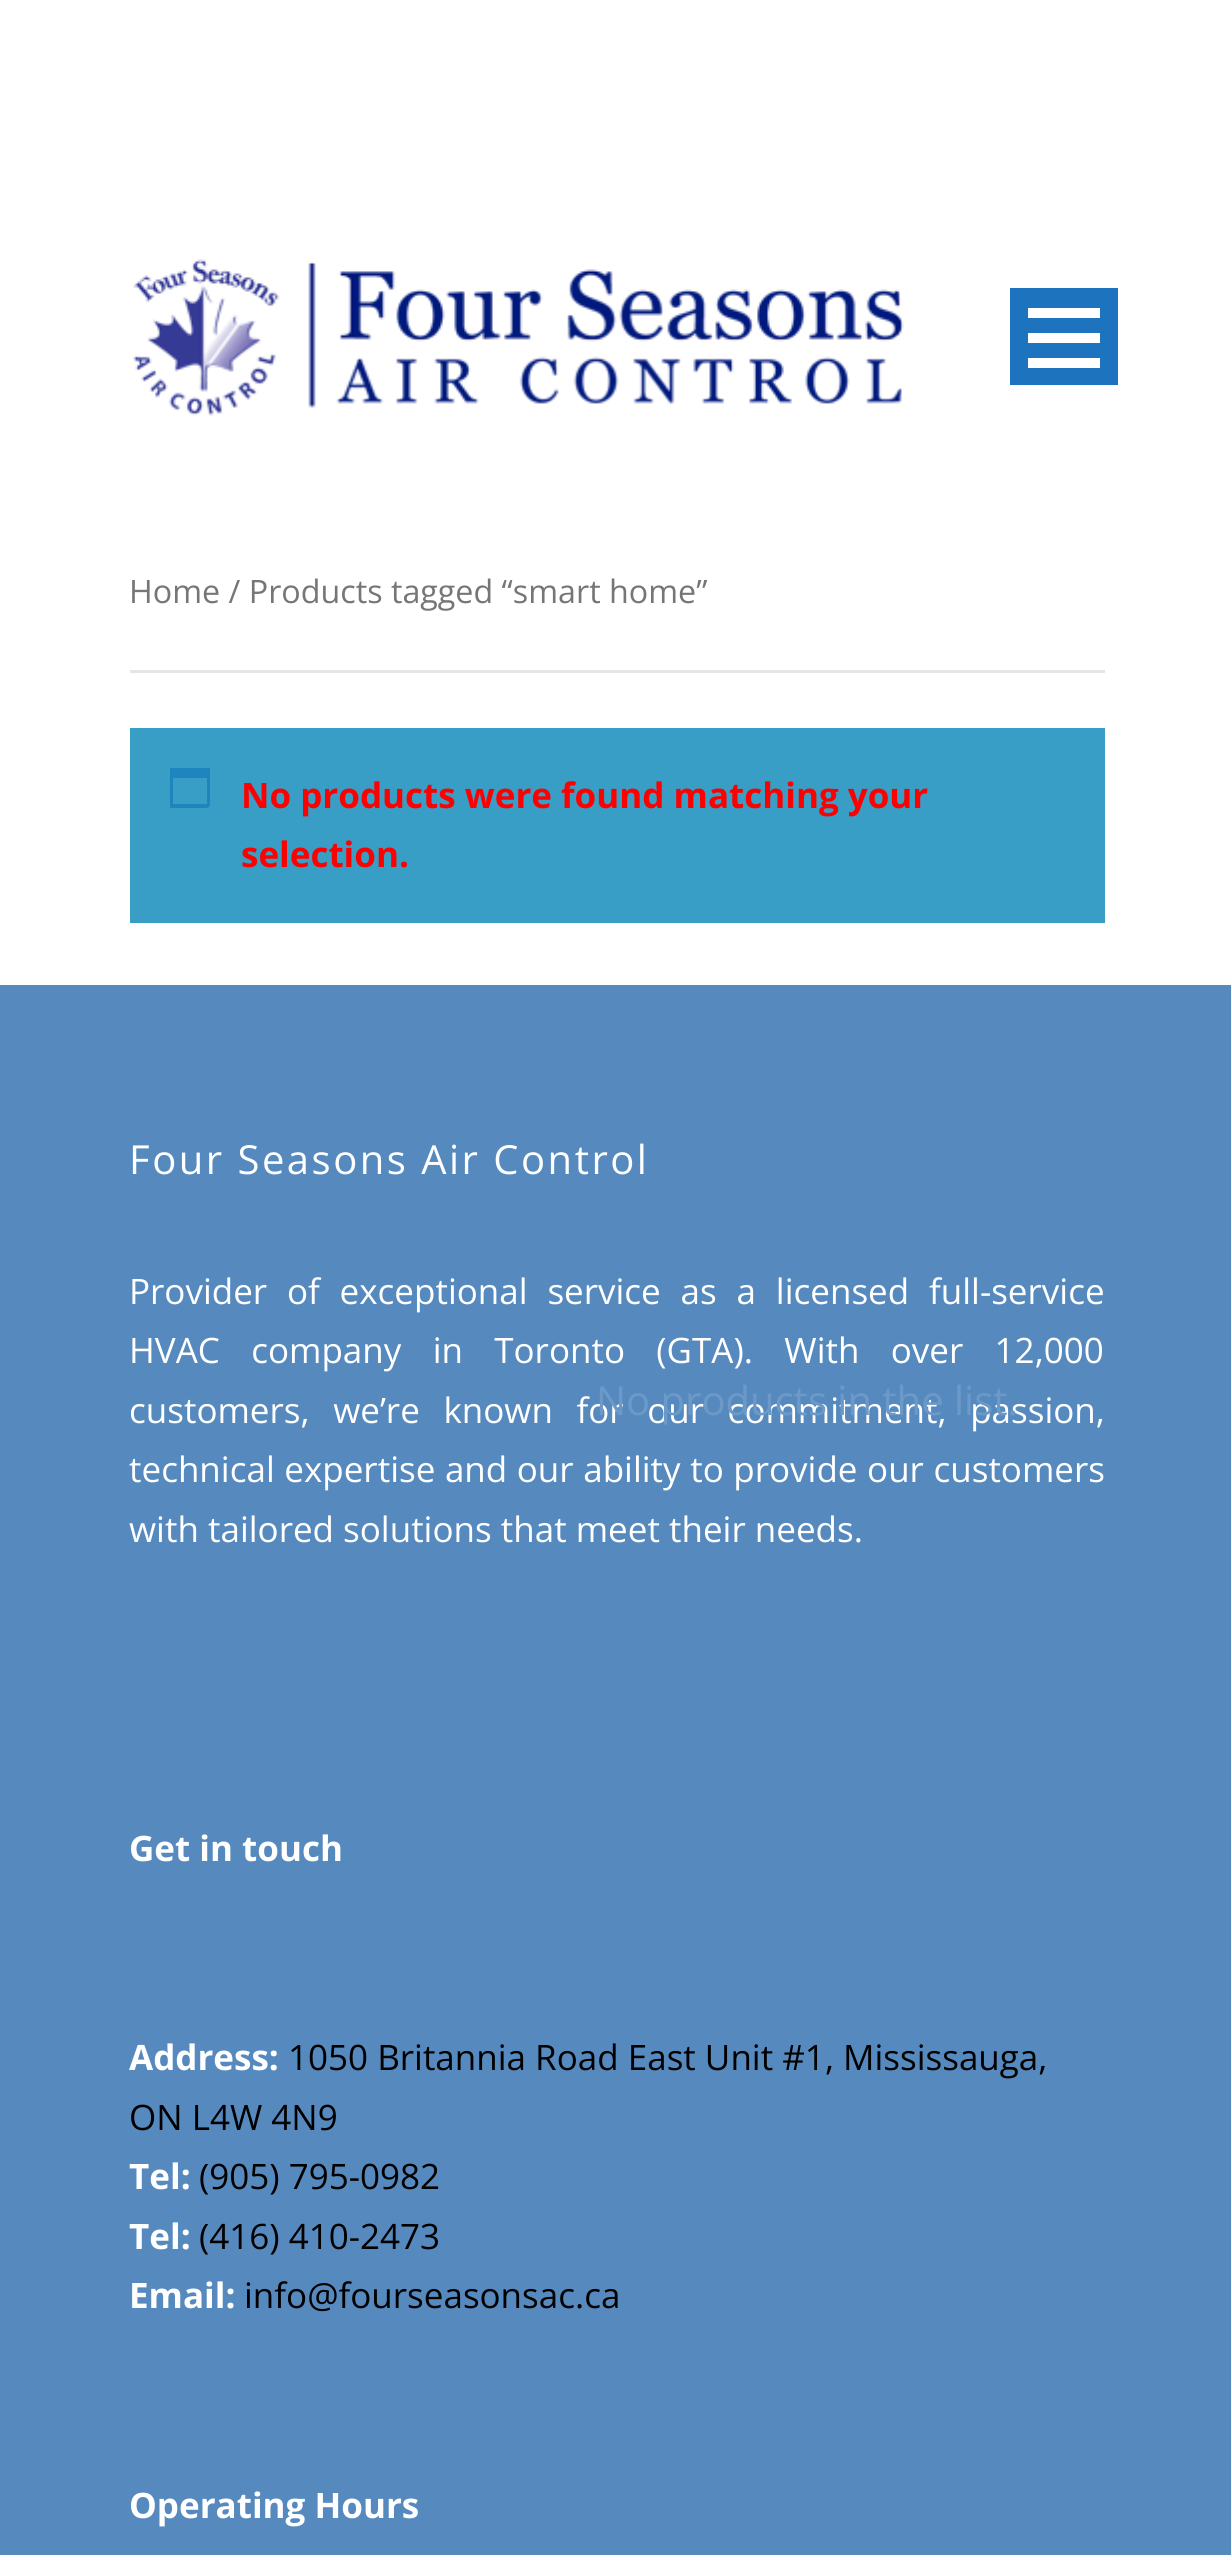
#include <cairo.h>
#include <math.h>
#include <stddef.h>


static void set_color(cairo_t *cr, unsigned color) {
    cairo_set_source_rgb(cr, (color >> 16) / 255.0, (color >> 8 & 255) / 255.0, (color & 255) / 255.0);
}

static void draw_text(cairo_t *cr, double x, double y, const char *s, const char *family, double size, int italic, int bold, unsigned color) {
    cairo_select_font_face(cr, family, italic ? CAIRO_FONT_SLANT_ITALIC : CAIRO_FONT_SLANT_NORMAL,
        bold ? CAIRO_FONT_WEIGHT_BOLD : CAIRO_FONT_WEIGHT_NORMAL);
    cairo_set_font_size(cr, size);
    set_color(cr, color);
    cairo_move_to(cr, x, y);
    cairo_show_text(cr, s);
}

static void draw_spaced(cairo_t *cr, double x, double y, const char *s, double letter, double word) {
    cairo_move_to(cr, x, y);
    while (*s) {
        char ch[5] = {0};
        int n = 0;
        do ch[n++] = *s++; while ((*s & 0xC0) == 0x80);
        cairo_show_text(cr, ch);
        cairo_rel_move_to(cr, letter + word * (*ch == ' '), 0);
    }
}

static void fill_rect(cairo_t *cr, double x, double y, double w, double h, unsigned color) {
    set_color(cr, color);
    cairo_rectangle(cr, x, y, w, h);
    cairo_fill(cr);
}

static void draw_image(cairo_t *cr, const char *path, double x, double y, double w, double h) {
    cairo_surface_t *image = cairo_image_surface_create_from_png(path);
    cairo_save(cr);
    cairo_set_source_surface(cr, image, x, y);
    cairo_rectangle(cr, x, y, w, h);
    cairo_fill(cr);
    cairo_restore(cr);
    cairo_surface_destroy(image);
}

int main(void) {
    cairo_surface_t *surface = cairo_image_surface_create(CAIRO_FORMAT_RGB24, 1231, 2555);
    cairo_t *cr = cairo_create(surface);
    cairo_font_options_t *options = cairo_font_options_create();
    cairo_font_options_set_hint_metrics(options, CAIRO_HINT_METRICS_OFF);
    cairo_font_options_set_hint_style(options, CAIRO_HINT_STYLE_NONE);
    cairo_set_font_options(cr, options);
    cairo_set_miter_limit(cr, 4);
    set_color(cr, 0xFFFFFF);
    cairo_paint(cr);
    fill_rect(cr, 130, 670, 975, 3, 0xE5E5E5);
    draw_text(cr, 129, 603, "Home / Products tagged “smart home”", "Open Sans", 32.25, 0, 0, 0x767676);
    fill_rect(cr, 130, 728, 975, 195, 0x389EC5);
    set_color(cr, 0x1E85BE);
    cairo_new_path(cr);
    cairo_move_to(cr, 207, 778);
    cairo_line_to(cr, 173, 778);
    cairo_line_to(cr, 173, 804);
    cairo_line_to(cr, 207, 804);
    cairo_close_path(cr);
    cairo_move_to(cr, 210, 768);
    cairo_line_to(cr, 210, 798);
    cairo_curve_to(cr, 210, 808, 211, 808, 201, 808);
    cairo_line_to(cr, 170, 808);
    cairo_line_to(cr, 170, 768);
    cairo_close_path(cr);
    cairo_fill(cr);
    draw_text(cr, 241, 808, "No products were found matching your", "Open Sans", 35, 0, 1, 0xFF0000);
    draw_text(cr, 241, 867, "selection.", "Open Sans", 35, 0, 1, 0xFF0000);
    fill_rect(cr, 0, 985, 1231, 1570, 0x568ABF);
    cairo_select_font_face(cr, "Open Sans", CAIRO_FONT_SLANT_NORMAL, CAIRO_FONT_WEIGHT_NORMAL);
    cairo_set_font_size(cr, 40);
    set_color(cr, 0xFFFFFF);
    draw_spaced(cr, 129, 1174, "Four Seasons Air Control", 2.5, 0);
    cairo_set_font_size(cr, 35);
    draw_spaced(cr, 129, 1304, "Provider of exceptional service as a licensed full-service", 0, 10.75);
    draw_spaced(cr, 129, 1363, "HVAC company in Toronto (GTA). With over 12,000", 0, 22.25);
    draw_spaced(cr, 129, 1423, "customers, we’re known for our commitment, passion,", 0, 14.5);
    draw_spaced(cr, 129, 1482, "technical expertise and our ability to provide our customers", 0, 0.5);
    draw_text(cr, 129, 1542, "with tailored solutions that meet their needs.", "Open Sans", 35, 0, 0, 0xFFFFFF);
    draw_text(cr, 129, 1861, "Get in touch", "Open Sans", 35, 0, 1, 0xFFFFFF);
    draw_text(cr, 129, 2070, "Address:", "Open Sans", 35, 0, 1, 0xFFFFFF);
    draw_text(cr, 288, 2070, "1050 Britannia Road East Unit #1, Mississauga,", "Open Sans", 35, 0, 0, 0x000000);
    draw_text(cr, 129, 2130, "ON L4W 4N9", "Open Sans", 35, 0, 0, 0x000000);
    draw_text(cr, 129, 2189, "Tel:", "Open Sans", 35, 0, 1, 0xFFFFFF);
    draw_text(cr, 199, 2189, "(905) 795-0982", "Open Sans", 35, 0, 0, 0x000000);
    draw_text(cr, 129, 2249, "Tel:", "Open Sans", 35, 0, 1, 0xFFFFFF);
    draw_text(cr, 199, 2249, "(416) 410-2473", "Open Sans", 35, 0, 0, 0x000000);
    draw_text(cr, 129, 2308, "Email:", "Open Sans", 35, 0, 1, 0xFFFFFF);
    draw_text(cr, 244, 2308, "info@fourseasonsac.ca", "Open Sans", 35, 0, 0, 0x000000);
    draw_text(cr, 129, 2518, "Operating Hours", "Open Sans", 35, 0, 1, 0xFFFFFF);
    draw_image(cr, "assets/img1.png", 133, 259, 771, 157);
    fill_rect(cr, 1010, 288, 108, 97, 0x1E73BE);
    fill_rect(cr, 1028, 358, 72, 10, 0xFFFFFF);
    fill_rect(cr, 1028, 333, 72, 10, 0xFFFFFF);
    fill_rect(cr, 1028, 308, 72, 10, 0xFFFFFF);
    draw_text(cr, 596, 1415, "No products in the list.", "Open Sans", 40, 0, 0, 0x6C99C7);
    cairo_surface_write_to_png(surface, "output.png");
    cairo_font_options_destroy(options);
    cairo_destroy(cr);
    cairo_surface_destroy(surface);
    return 0;
}
